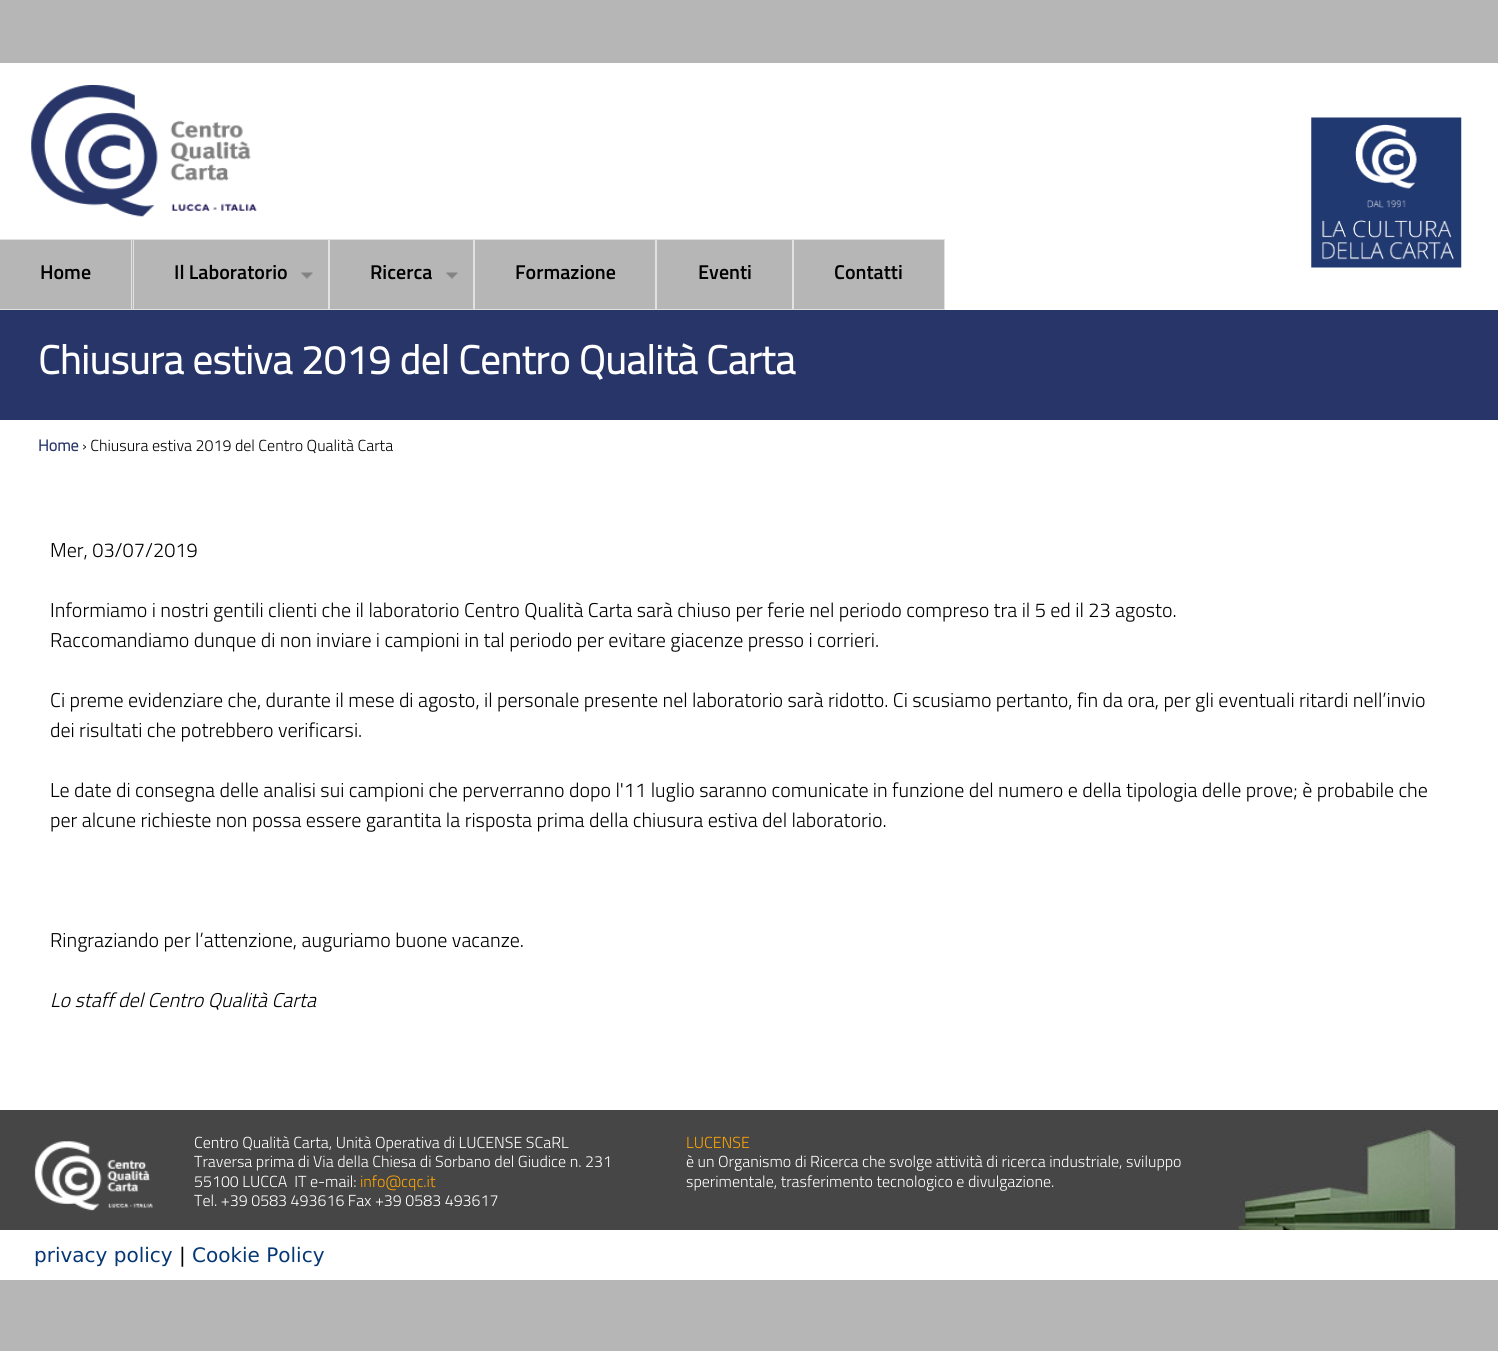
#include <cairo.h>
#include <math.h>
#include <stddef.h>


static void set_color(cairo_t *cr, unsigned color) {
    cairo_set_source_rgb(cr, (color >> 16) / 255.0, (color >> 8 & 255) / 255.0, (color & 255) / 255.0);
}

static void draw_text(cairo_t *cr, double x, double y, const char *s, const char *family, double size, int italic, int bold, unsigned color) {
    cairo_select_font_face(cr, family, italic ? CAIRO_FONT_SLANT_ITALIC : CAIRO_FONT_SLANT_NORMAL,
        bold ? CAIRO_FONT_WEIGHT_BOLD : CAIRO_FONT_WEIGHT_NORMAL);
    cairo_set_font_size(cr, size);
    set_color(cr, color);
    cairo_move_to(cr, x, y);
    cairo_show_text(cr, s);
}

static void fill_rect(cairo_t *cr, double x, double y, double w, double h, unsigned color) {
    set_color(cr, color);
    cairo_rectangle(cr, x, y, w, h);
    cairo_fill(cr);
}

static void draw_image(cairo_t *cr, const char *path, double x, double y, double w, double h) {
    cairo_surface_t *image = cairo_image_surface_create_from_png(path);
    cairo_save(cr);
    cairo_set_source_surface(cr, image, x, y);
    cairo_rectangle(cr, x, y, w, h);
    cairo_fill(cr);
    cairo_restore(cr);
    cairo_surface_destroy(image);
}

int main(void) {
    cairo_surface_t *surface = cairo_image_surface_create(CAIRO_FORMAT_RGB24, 1498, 1351);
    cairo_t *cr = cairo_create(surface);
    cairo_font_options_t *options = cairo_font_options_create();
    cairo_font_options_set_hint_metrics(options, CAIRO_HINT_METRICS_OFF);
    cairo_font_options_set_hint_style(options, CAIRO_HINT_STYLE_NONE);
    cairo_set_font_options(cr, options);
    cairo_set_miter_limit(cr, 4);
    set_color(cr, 0xB6B6B6);
    cairo_paint(cr);
    fill_rect(cr, 0, 63, 1498, 1047, 0xFFFFFF);
    draw_image(cr, "assets/img1.png", 31, 85, 226, 132);
    draw_image(cr, "assets/img2.png", 1311, 117, 151, 151);
    fill_rect(cr, 0, 240, 133, 69, 0xB6B6B6);
    fill_rect(cr, 0, 239, 133, 1, 0xE1E1E1);
    fill_rect(cr, 131, 239, 1, 71, 0xE1E1E1);
    fill_rect(cr, 0, 309, 133, 1, 0xE1E1E1);
    draw_text(cr, 40, 279, "Home", "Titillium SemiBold", 20, 0, 0, 0x000000);
    set_color(cr, 0xB6B6B6);
    cairo_rectangle(cr, 133.5, 239.5, 195, 70);
    cairo_fill_preserve(cr);
    set_color(cr, 0xE1E1E1);
    cairo_set_line_width(cr, 1);
    cairo_stroke(cr);
    draw_text(cr, 174, 279, "Il Laboratorio", "Titillium SemiBold", 20, 0, 0, 0x000000);
    draw_image(cr, "assets/img3.png", 301, 272, 12, 7);
    set_color(cr, 0xB6B6B6);
    cairo_rectangle(cr, 329.5, 239.5, 144, 70);
    cairo_fill_preserve(cr);
    set_color(cr, 0xE1E1E1);
    cairo_stroke(cr);
    draw_text(cr, 370, 279, "Ricerca", "Titillium SemiBold", 20, 0, 0, 0x000000);
    draw_image(cr, "assets/img4.png", 446, 272, 12, 7);
    set_color(cr, 0xB6B6B6);
    cairo_rectangle(cr, 474.5, 239.5, 181, 70);
    cairo_fill_preserve(cr);
    set_color(cr, 0xE1E1E1);
    cairo_stroke(cr);
    draw_text(cr, 515, 279, "Formazione", "Titillium SemiBold", 20, 0, 0, 0x000000);
    set_color(cr, 0xB6B6B6);
    cairo_rectangle(cr, 656.5, 239.5, 136, 70);
    cairo_fill_preserve(cr);
    set_color(cr, 0xE1E1E1);
    cairo_stroke(cr);
    draw_text(cr, 698, 279, "Eventi", "Titillium SemiBold", 20, 0, 0, 0x000000);
    set_color(cr, 0xB6B6B6);
    cairo_rectangle(cr, 793.5, 239.5, 151, 70);
    cairo_fill_preserve(cr);
    set_color(cr, 0xE1E1E1);
    cairo_stroke(cr);
    draw_text(cr, 834, 279, "Contatti", "Titillium SemiBold", 20, 0, 0, 0x000000);
    fill_rect(cr, 0, 310, 1498, 110, 0x273569);
    draw_text(cr, 38, 374, "Chiusura estiva 2019 del Centro Qualità Carta", "Titillium", 40, 0, 1, 0xFFFFFF);
    draw_text(cr, 38, 451, "Home", "Titillium", 16, 0, 1, 0x273569);
    draw_text(cr, 82, 451, "› Chiusura estiva 2019 del Centro Qualità Carta", "Titillium Light", 16, 0, 0, 0x000000);
    draw_text(cr, 50, 557, "Mer, 03/07/2019", "Titillium Light", 20, 0, 0, 0x000000);
    draw_text(cr, 50, 617, "Informiamo i nostri gentili clienti che il laboratorio Centro Qualità Carta sarà chiuso per ferie nel periodo compreso tra il 5 ed il 23 agosto.", "Titillium Light", 20, 0, 0, 0x000000);
    draw_text(cr, 50, 647, "Raccomandiamo dunque di non inviare i campioni in tal periodo per evitare giacenze presso i corrieri.", "Titillium Light", 20, 0, 0, 0x000000);
    draw_text(cr, 50, 707, "Ci preme evidenziare che, durante il mese di agosto, il personale presente nel laboratorio sarà ridotto. Ci scusiamo pertanto, fin da ora, per gli eventuali ritardi nell’invio", "Titillium Light", 20, 0, 0, 0x000000);
    draw_text(cr, 50, 737, "dei risultati che potrebbero verificarsi.", "Titillium Light", 20, 0, 0, 0x000000);
    draw_text(cr, 50, 797, "Le date di consegna delle analisi sui campioni che perverranno dopo l'11 luglio saranno comunicate in funzione del numero e della tipologia delle prove; è probabile che", "Titillium Light", 20, 0, 0, 0x000000);
    draw_text(cr, 50, 827, "per alcune richieste non possa essere garantita la risposta prima della chiusura estiva del laboratorio.", "Titillium Light", 20, 0, 0, 0x000000);
    draw_text(cr, 50, 947, "Ringraziando per l’attenzione, auguriamo buone vacanze.", "Titillium Light", 20, 0, 0, 0x000000);
    draw_text(cr, 50, 1007, "Lo staff del Centro Qualità Carta", "Titillium Light", 20, 1, 0, 0x000000);
    fill_rect(cr, 0, 1110, 1498, 120, 0x464646);
    draw_image(cr, "assets/img5.png", 1230, 1126, 230, 104);
    draw_image(cr, "assets/img6.png", 34, 1141, 119, 70);
    draw_text(cr, 194, 1148, "Centro Qualità Carta, Unità Operativa di LUCENSE SCaRL", "Titillium Light", 16, 0, 0, 0xFFFFFF);
    draw_text(cr, 194, 1167, "Traversa prima di Via della Chiesa di Sorbano del Giudice n. 231", "Titillium Light", 16, 0, 0, 0xFFFFFF);
    draw_text(cr, 194, 1187, "55100 LUCCA  IT e-mail:", "Titillium Light", 16, 0, 0, 0xFFFFFF);
    draw_text(cr, 360, 1187, "info@cqc.it", "Titillium Light", 16, 0, 0, 0xFFA500);
    draw_text(cr, 194, 1206, "Tel. +39 0583 493616 Fax +39 0583 493617", "Titillium Light", 16, 0, 0, 0xFFFFFF);
    draw_text(cr, 686, 1148, "LUCENSE", "Titillium Light", 16, 0, 0, 0xFFA500);
    draw_text(cr, 686, 1167, "è un Organismo di Ricerca che svolge attività di ricerca industriale, sviluppo", "Titillium Light", 16, 0, 0, 0xFFFFFF);
    draw_text(cr, 686, 1187, "sperimentale, trasferimento tecnologico e divulgazione.", "Titillium Light", 16, 0, 0, 0xFFFFFF);
    fill_rect(cr, 0, 1230, 1498, 50, 0xFFFFFF);
    draw_text(cr, 34, 1262, "privacy policy", "DejaVu Sans", 20, 0, 0, 0x053774);
    draw_text(cr, 179, 1262, "|", "DejaVu Sans", 20, 0, 0, 0x000000);
    draw_text(cr, 192, 1262, "Cookie Policy", "DejaVu Sans", 20, 0, 0, 0x053774);
    cairo_surface_write_to_png(surface, "output.png");
    cairo_font_options_destroy(options);
    cairo_destroy(cr);
    cairo_surface_destroy(surface);
    return 0;
}
